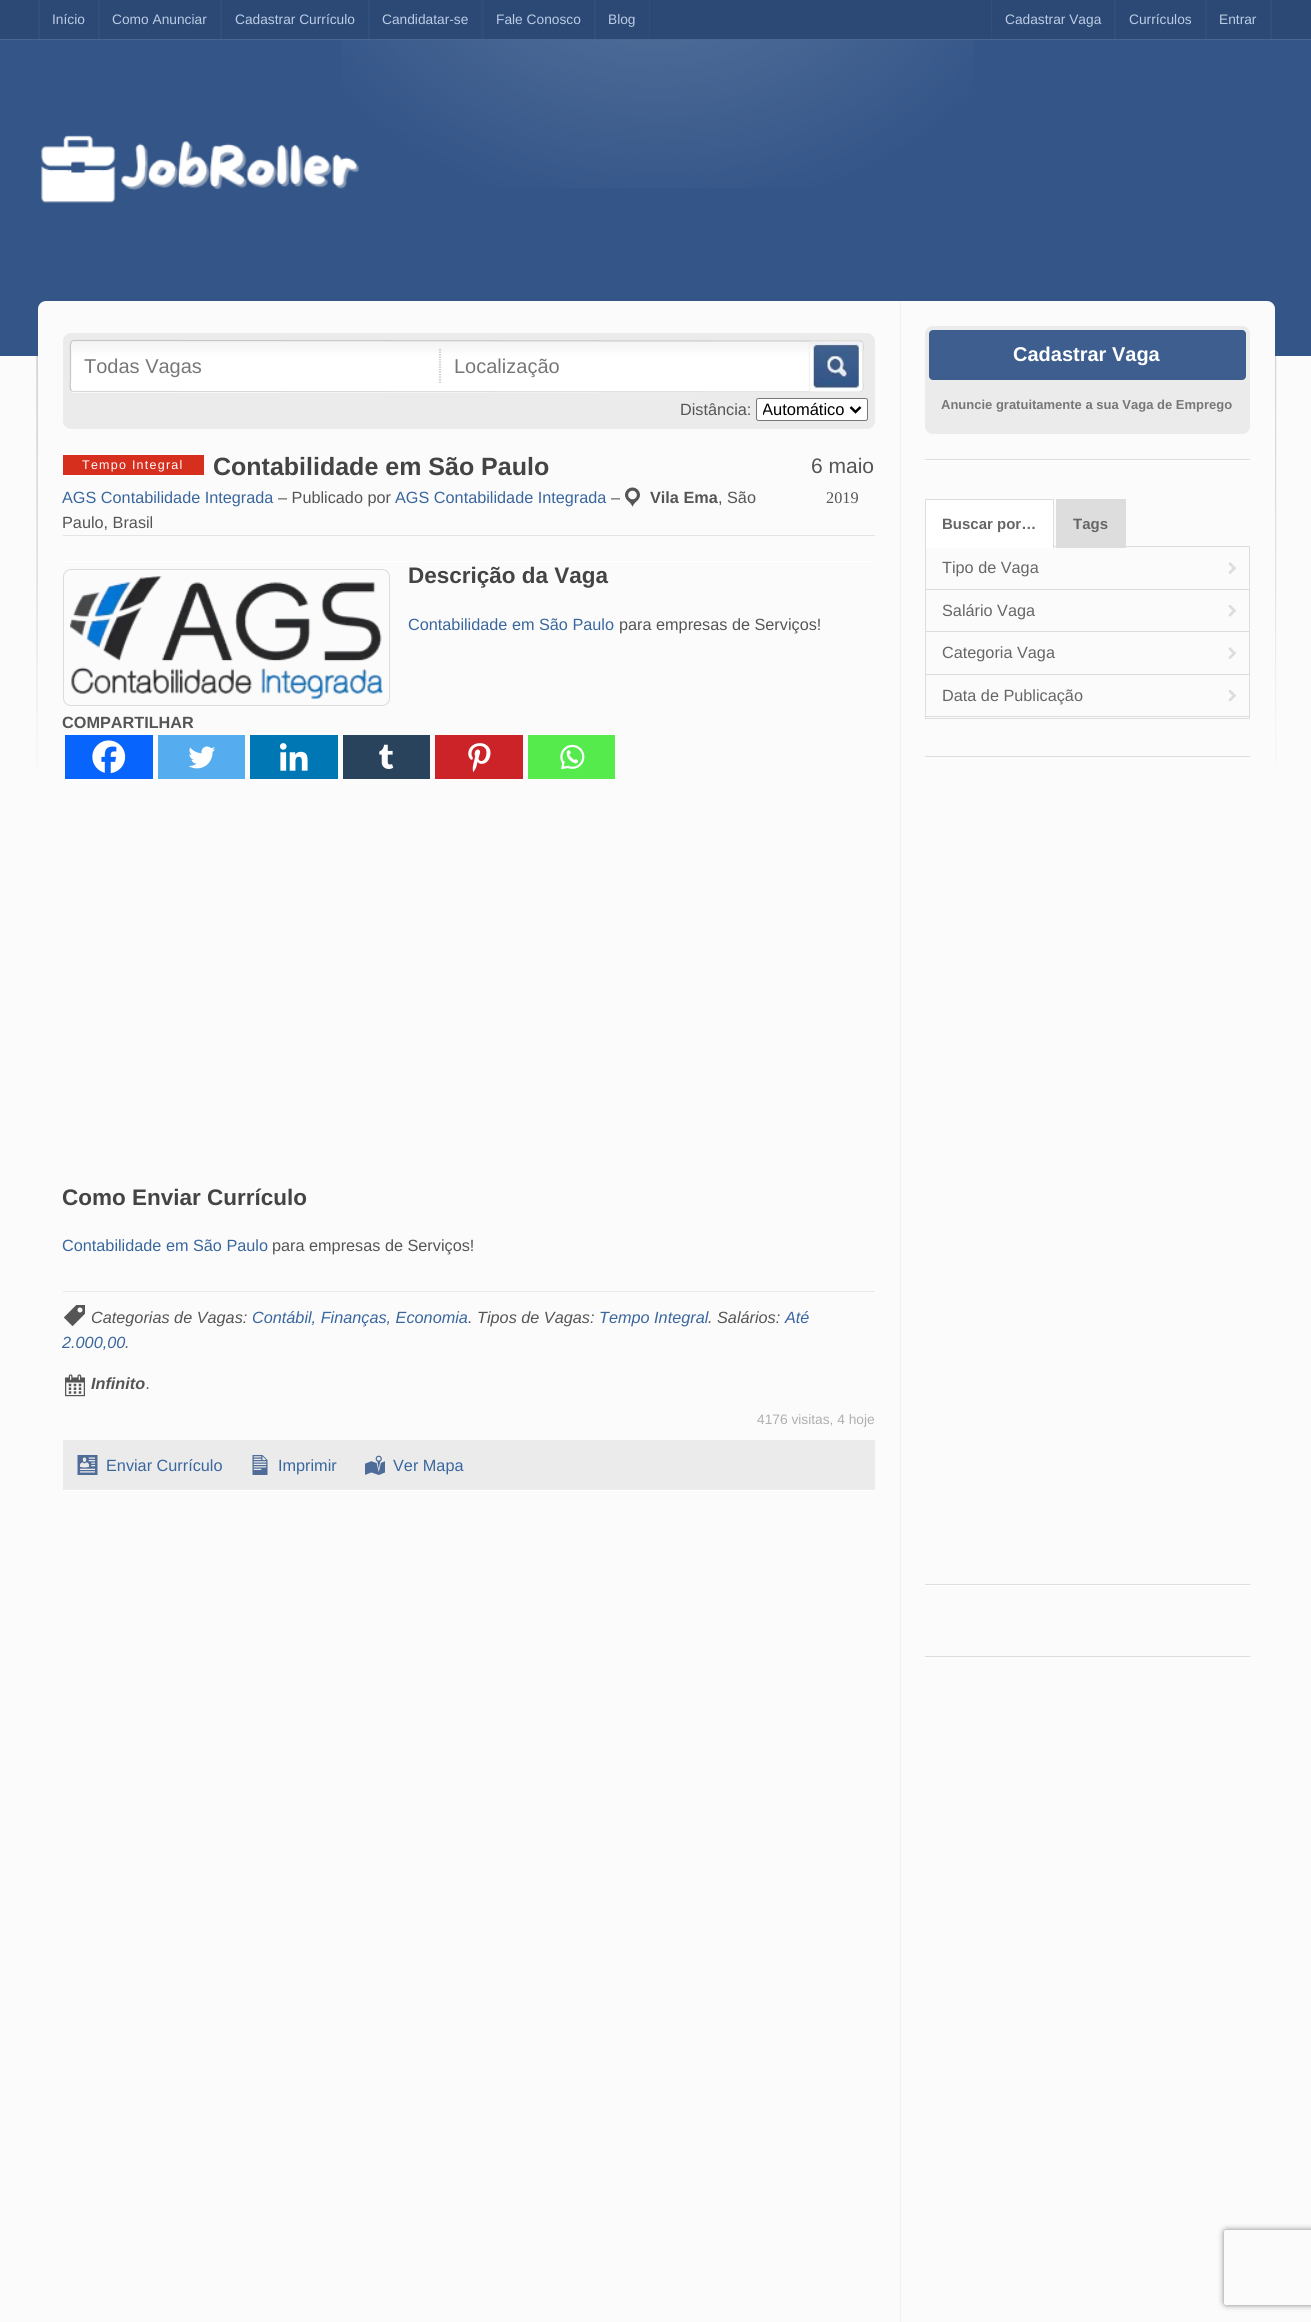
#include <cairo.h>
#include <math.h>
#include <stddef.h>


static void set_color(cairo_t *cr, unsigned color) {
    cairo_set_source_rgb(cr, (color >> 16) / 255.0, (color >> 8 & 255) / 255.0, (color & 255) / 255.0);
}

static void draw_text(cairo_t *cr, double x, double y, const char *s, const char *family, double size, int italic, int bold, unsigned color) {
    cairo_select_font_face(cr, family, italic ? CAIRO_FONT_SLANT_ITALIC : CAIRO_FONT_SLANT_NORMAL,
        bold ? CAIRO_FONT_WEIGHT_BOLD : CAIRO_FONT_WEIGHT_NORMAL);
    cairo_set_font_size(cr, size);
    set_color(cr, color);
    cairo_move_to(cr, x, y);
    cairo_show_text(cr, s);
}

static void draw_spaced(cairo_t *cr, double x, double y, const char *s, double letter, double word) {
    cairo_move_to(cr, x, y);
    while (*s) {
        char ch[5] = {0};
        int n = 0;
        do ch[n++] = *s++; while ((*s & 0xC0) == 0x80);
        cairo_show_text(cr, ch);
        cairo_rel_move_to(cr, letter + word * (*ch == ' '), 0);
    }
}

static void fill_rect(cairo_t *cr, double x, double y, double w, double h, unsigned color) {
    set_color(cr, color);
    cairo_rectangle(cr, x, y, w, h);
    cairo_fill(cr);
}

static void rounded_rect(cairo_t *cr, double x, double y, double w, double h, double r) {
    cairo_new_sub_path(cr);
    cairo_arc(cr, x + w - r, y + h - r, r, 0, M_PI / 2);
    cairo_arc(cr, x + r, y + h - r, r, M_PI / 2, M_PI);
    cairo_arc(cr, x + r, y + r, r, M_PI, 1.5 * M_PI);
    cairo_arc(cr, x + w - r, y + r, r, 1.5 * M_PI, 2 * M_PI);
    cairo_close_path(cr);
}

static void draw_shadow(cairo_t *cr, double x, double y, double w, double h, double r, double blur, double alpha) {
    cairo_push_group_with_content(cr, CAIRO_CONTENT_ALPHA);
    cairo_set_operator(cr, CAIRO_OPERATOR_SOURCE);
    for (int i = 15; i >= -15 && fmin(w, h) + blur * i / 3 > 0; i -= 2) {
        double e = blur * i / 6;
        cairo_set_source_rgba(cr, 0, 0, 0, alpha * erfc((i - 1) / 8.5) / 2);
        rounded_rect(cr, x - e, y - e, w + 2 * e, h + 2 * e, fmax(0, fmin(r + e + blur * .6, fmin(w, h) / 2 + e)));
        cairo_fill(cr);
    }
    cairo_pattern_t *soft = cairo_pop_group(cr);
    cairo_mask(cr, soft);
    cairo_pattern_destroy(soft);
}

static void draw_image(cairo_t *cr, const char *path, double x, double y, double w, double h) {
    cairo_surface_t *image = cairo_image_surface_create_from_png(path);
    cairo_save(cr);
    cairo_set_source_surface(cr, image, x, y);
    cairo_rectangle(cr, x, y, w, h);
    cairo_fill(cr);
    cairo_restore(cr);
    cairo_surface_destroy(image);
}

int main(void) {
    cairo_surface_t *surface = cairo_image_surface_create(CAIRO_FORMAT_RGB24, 1311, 2322);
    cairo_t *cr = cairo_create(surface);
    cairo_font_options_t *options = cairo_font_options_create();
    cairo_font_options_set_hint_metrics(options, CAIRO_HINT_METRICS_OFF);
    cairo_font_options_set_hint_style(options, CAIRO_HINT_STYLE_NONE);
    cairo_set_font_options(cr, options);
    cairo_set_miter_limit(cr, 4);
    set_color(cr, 0xFBFBFB);
    cairo_paint(cr);
    fill_rect(cr, 0, 0, 1311, 39, 0x2C4975);
    fill_rect(cr, 1270, 0, 2, 39, 0x2F4F7E);
    fill_rect(cr, 38, 0, 2, 39, 0x2F4F7E);
    fill_rect(cr, 98, 0, 2, 39, 0x2F4F7E);
    draw_text(cr, 52, 24, "Início", "Liberation Sans", 13.75, 0, 0, 0xBBCCE5);
    fill_rect(cr, 220, 0, 2, 39, 0x2F4F7E);
    draw_text(cr, 112, 24, "Como Anunciar", "Liberation Sans", 13.75, 0, 0, 0xBBCCE5);
    fill_rect(cr, 368, 0, 2, 39, 0x2F4F7E);
    draw_text(cr, 235, 24, "Cadastrar Currículo", "Liberation Sans", 13.75, 0, 0, 0xBBCCE5);
    fill_rect(cr, 481, 0, 1, 39, 0x2F4F7E);
    draw_text(cr, 382, 24, "Candidatar-se", "Liberation Sans", 13.75, 0, 0, 0xBBCCE5);
    fill_rect(cr, 594, 0, 2, 39, 0x2F4F7E);
    fill_rect(cr, 483, 0, 1, 39, 0x2F4F7E);
    draw_text(cr, 496, 24, "Fale Conosco", "Liberation Sans", 13.75, 0, 0, 0xBBCCE5);
    fill_rect(cr, 649, 0, 1, 39, 0x2F4F7E);
    draw_text(cr, 608, 24, "Blog", "Liberation Sans", 13.75, 0, 0, 0xBBCCE5);
    fill_rect(cr, 991, 0, 1, 39, 0x2F4F7E);
    draw_text(cr, 1005, 24, "Cadastrar Vaga", "Liberation Sans", 13.75, 0, 0, 0xBBCCE5);
    fill_rect(cr, 1114, 0, 2, 39, 0x2F4F7E);
    draw_text(cr, 1129, 24, "Currículos", "Liberation Sans", 13.75, 0, 0, 0xBBCCE5);
    fill_rect(cr, 1205, 0, 2, 39, 0x2F4F7E);
    draw_text(cr, 1219, 24, "Entrar", "Liberation Sans", 13.75, 0, 0, 0xBBCCE5);
    fill_rect(cr, 0, 40, 1311, 316, 0x335588);
    fill_rect(cr, 0, 39, 1311, 1, 0x476694);
    draw_image(cr, "assets/img1.png", 341, 40, 633, 148);
    draw_image(cr, "assets/img2.png", 41, 135, 318, 68);
    draw_image(cr, "assets/img3.png", 36, 356, 1241, 411);
    set_color(cr, 0xFBFBFB);
    rounded_rect(cr, 38, 301, 1237, 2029, 8);
    cairo_fill(cr);
    draw_image(cr, "assets/img4.png", 900, 301, 1, 2021);
    set_color(cr, 0xEBEBEB);
    rounded_rect(cr, 63, 333, 812, 96, 8);
    cairo_fill(cr);
    set_color(cr, 0xFFFFFF);
    rounded_rect(cr, 70, 340, 794, 53, 4);
    cairo_fill(cr);
    draw_image(cr, "assets/img5.png", 70, 341, 794, 50);
    cairo_new_path(cr);
    cairo_move_to(cr, 862, 341.5);
    cairo_curve_to(cr, 864.5, 343.5, 863, 350.5, 863, 351);
    cairo_line_to(cr, 863, 381);
    cairo_curve_to(cr, 863, 383, 865, 392, 860, 392);
    cairo_line_to(cr, 72.5, 391.5);
    cairo_line_to(cr, 71.5, 391);
    set_color(cr, 0xD8D8D8);
    cairo_set_line_width(cr, 1.2);
    cairo_stroke(cr);
    cairo_new_path(cr);
    cairo_move_to(cr, 71.5, 391);
    cairo_curve_to(cr, 69.5, 389, 70.5, 382, 70.5, 381);
    cairo_line_to(cr, 70.5, 351);
    cairo_curve_to(cr, 70.5, 349.5, 69, 340.5, 74, 340.5);
    cairo_line_to(cr, 861, 341);
    cairo_line_to(cr, 862, 341.5);
    set_color(cr, 0xC6C6C6);
    cairo_stroke(cr);
    cairo_new_path(cr);
    cairo_move_to(cr, 439.5, 349);
    cairo_line_to(cr, 439.5, 384);
    set_color(cr, 0xCCCCCC);
    cairo_set_dash(cr, (double[]){1.25, 1.25}, 2, 0);
    cairo_stroke(cr);
    draw_text(cr, 84, 373, "Todas Vagas", "Liberation Sans", 20, 0, 0, 0x777777);
    cairo_new_path(cr);
    cairo_move_to(cr, 440.5, 349);
    cairo_line_to(cr, 440.5, 384);
    set_color(cr, 0xCCCCCC);
    cairo_stroke(cr);
    draw_text(cr, 454, 373, "Localização", "Liberation Sans", 20, 0, 0, 0x777777);
    draw_image(cr, "assets/img6.png", 808, 341, 52, 51);
    draw_text(cr, 680, 415, "Distância:", "Liberation Sans", 16.25, 0, 0, 0x555555);
    set_color(cr, 0xFFFFFF);
    rounded_rect(cr, 756.5, 398.5, 111, 22, 2);
    cairo_fill_preserve(cr);
    set_color(cr, 0x767676);
    cairo_set_line_width(cr, 1);
    cairo_set_dash(cr, NULL, 0, 0);
    cairo_stroke(cr);
    cairo_new_path(cr);
    cairo_move_to(cr, 850.5, 407);
    cairo_line_to(cr, 855.5, 412);
    cairo_line_to(cr, 860.5, 407);
    set_color(cr, 0x000000);
    cairo_set_line_width(cr, 2.5);
    cairo_stroke(cr);
    cairo_save(cr);
    cairo_rectangle(cr, 763, 399, 83, 21);
    cairo_clip(cr);
    draw_text(cr, 762, 415, "Automático", "Liberation Sans", 16.5, 0, 0, 0x000000);
    cairo_restore(cr);
    fill_rect(cr, 63, 535, 812, 1, 0xE4E4E4);
    fill_rect(cr, 63, 455, 141, 20, 0xD72F1D);
    cairo_set_font_size(cr, 12.5);
    set_color(cr, 0xFFFFFF);
    draw_spaced(cr, 82, 469, "Tempo Integral", 1.25, 0);
    draw_text(cr, 213, 475, "Contabilidade em São Paulo", "Liberation Sans", 25, 0, 1, 0x444444);
    draw_text(cr, 811, 473, "6 maio", "Liberation Sans", 21, 0, 0, 0x555555);
    draw_text(cr, 826, 503, "2019", "Liberation Serif", 16.25, 0, 0, 0x555555);
    draw_text(cr, 62, 503, "AGS Contabilidade Integrada", "Liberation Sans", 16.25, 0, 0, 0x39669E);
    draw_text(cr, 278, 503, "– Publicado por", "Liberation Sans", 16.25, 0, 0, 0x555555);
    draw_text(cr, 395, 503, "AGS Contabilidade Integrada", "Liberation Sans", 16.25, 0, 0, 0x39669E);
    draw_text(cr, 611, 503, "–", "Liberation Sans", 16.25, 0, 0, 0x555555);
    draw_image(cr, "assets/img7.png", 625, 487, 15, 20);
    draw_text(cr, 650, 503, "Vila Ema", "Liberation Sans", 16.25, 0, 1, 0x555555);
    draw_text(cr, 718, 503, ", São", "Liberation Sans", 16.25, 0, 0, 0x555555);
    draw_text(cr, 62, 528, "Paulo, Brasil", "Liberation Sans", 16.25, 0, 0, 0x555555);
    fill_rect(cr, 63, 561, 812, 1, 0xFFFFFF);
    rounded_rect(cr, 63.5, 569.5, 326, 136, 7.5);
    set_color(cr, 0xDADBDD);
    cairo_set_line_width(cr, 1);
    cairo_stroke(cr);
    draw_image(cr, "assets/img8.png", 70, 576, 313, 123);
    draw_text(cr, 408, 583, "Descrição da Vaga", "Liberation Sans", 22.5, 0, 1, 0x444444);
    draw_text(cr, 408, 630, "Contabilidade em São Paulo", "Liberation Sans", 16.25, 0, 0, 0x39669E);
    draw_text(cr, 619, 630, "para empresas de Serviços!", "Liberation Sans", 16.25, 0, 0, 0x555555);
    draw_text(cr, 62, 728, "COMPARTILHAR", "Liberation Sans", 16.25, 0, 1, 0x555555);
    fill_rect(cr, 65, 735, 88, 44, 0x0765FE);
    draw_image(cr, "assets/img9.png", 92, 740, 34, 34);
    fill_rect(cr, 158, 735, 87, 44, 0x55ACEE);
    draw_image(cr, "assets/img10.png", 188, 746, 28, 23);
    fill_rect(cr, 250, 735, 88, 44, 0x0077B5);
    draw_image(cr, "assets/img11.png", 279, 743, 29, 28);
    fill_rect(cr, 343, 735, 87, 44, 0x29435D);
    draw_image(cr, "assets/img12.png", 379, 744, 15, 25);
    fill_rect(cr, 435, 735, 88, 44, 0xCC2329);
    draw_image(cr, "assets/img13.png", 468, 743, 23, 29);
    fill_rect(cr, 528, 735, 87, 44, 0x55EB4C);
    draw_image(cr, "assets/img14.png", 560, 744, 25, 26);
    draw_text(cr, 62, 1205, "Como Enviar Currículo", "Liberation Sans", 22.5, 0, 1, 0x444444);
    draw_text(cr, 62, 1251, "Contabilidade em São Paulo", "Liberation Sans", 16.25, 0, 0, 0x39669E);
    draw_text(cr, 272, 1251, "para empresas de Serviços!", "Liberation Sans", 16.25, 0, 0, 0x555555);
    fill_rect(cr, 63, 1291, 812, 1, 0xEAEAEA);
    draw_image(cr, "assets/img15.png", 63, 1305, 22, 22);
    draw_text(cr, 91, 1323, "Categorias de Vagas:", "Liberation Sans", 16.25, 1, 0, 0x555555);
    draw_text(cr, 252, 1323, "Contábil, Finanças, Economia", "Liberation Sans", 16.25, 1, 0, 0x39669E);
    draw_text(cr, 468, 1323, ". Tipos de Vagas:", "Liberation Sans", 16.25, 1, 0, 0x555555);
    draw_text(cr, 599, 1323, "Tempo Integral", "Liberation Sans", 16.25, 1, 0, 0x39669E);
    draw_text(cr, 708, 1323, ". Salários:", "Liberation Sans", 16.25, 1, 0, 0x555555);
    draw_text(cr, 785, 1323, "Até", "Liberation Sans", 16.25, 1, 0, 0x39669E);
    draw_text(cr, 62, 1348, "2.000,00", "Liberation Sans", 16.25, 1, 0, 0x39669E);
    draw_text(cr, 125, 1348, ".", "Liberation Sans", 16.25, 1, 0, 0x555555);
    draw_image(cr, "assets/img16.png", 65, 1374, 20, 23);
    draw_text(cr, 91, 1389, "Infinito", "Liberation Sans", 16.25, 1, 1, 0x555555);
    draw_text(cr, 146, 1389, ".", "Liberation Sans", 16.25, 1, 0, 0x555555);
    draw_text(cr, 757, 1424, "4176 visitas, 4 hoje", "Liberation Sans", 13.75, 0, 0, 0xAFAFAF);
    fill_rect(cr, 63, 1440, 812, 50, 0xEBEBEB);
    draw_image(cr, "assets/img17.png", 77, 1455, 21, 20);
    draw_text(cr, 106, 1471, "Enviar Currículo", "Liberation Sans", 16.25, 0, 0, 0x39669E);
    draw_image(cr, "assets/img18.png", 252, 1455, 16, 20);
    draw_text(cr, 278, 1471, "Imprimir", "Liberation Sans", 16.25, 0, 0, 0x39669E);
    draw_image(cr, "assets/img19.png", 365, 1455, 20, 20);
    draw_text(cr, 393, 1471, "Ver Mapa", "Liberation Sans", 16.25, 0, 0, 0x39669E);
    fill_rect(cr, 63, 1490, 812, 1, 0xFFFFFF);
    fill_rect(cr, 925, 459, 325, 1, 0xDDDDDD);
    set_color(cr, 0xEBEBEB);
    rounded_rect(cr, 925, 326, 325, 108, 8);
    cairo_fill(cr);
    set_color(cr, 0x3D5E8E);
    rounded_rect(cr, 929, 330, 317, 50, 4);
    cairo_fill(cr);
    draw_text(cr, 1013, 361, "Cadastrar Vaga", "Liberation Sans", 20, 0, 1, 0xFFFFFF);
    draw_text(cr, 941, 409, "Anuncie gratuitamente a sua Vaga de Emprego", "Liberation Sans", 13, 0, 1, 0x777777);
    fill_rect(cr, 925, 460, 325, 1, 0xFFFFFF);
    fill_rect(cr, 925, 756, 325, 1, 0xDDDDDD);
    cairo_rectangle(cr, 925.5, 546.5, 324, 172);
    cairo_stroke(cr);
    fill_rect(cr, 926, 500, 127, 48, 0xFFFFFF);
    fill_rect(cr, 925, 499, 129, 1, 0xDDDDDD);
    fill_rect(cr, 1053, 499, 1, 49, 0xDDDDDD);
    fill_rect(cr, 925, 499, 1, 49, 0xDDDDDD);
    draw_text(cr, 942, 529, "Buscar por…", "Liberation Sans", 15, 0, 1, 0x666666);
    fill_rect(cr, 1056, 499, 70, 49, 0xDDDDDD);
    draw_text(cr, 1073, 529, "Tags", "Liberation Sans", 15, 0, 1, 0x666666);
    draw_image(cr, "assets/img20.png", 1228, 562, 9, 12);
    fill_rect(cr, 926, 589, 323, 1, 0xDDDDDD);
    draw_text(cr, 942, 573, "Tipo de Vaga", "Liberation Sans", 16.25, 0, 0, 0x666666);
    draw_image(cr, "assets/img21.png", 1228, 605, 9, 12);
    fill_rect(cr, 926, 631, 323, 1, 0xDDDDDD);
    draw_text(cr, 942, 616, "Salário Vaga", "Liberation Sans", 16.25, 0, 0, 0x666666);
    draw_image(cr, "assets/img20.png", 1228, 647, 9, 12);
    fill_rect(cr, 926, 674, 323, 1, 0xDDDDDD);
    draw_text(cr, 942, 658, "Categoria Vaga", "Liberation Sans", 16.25, 0, 0, 0x666666);
    draw_image(cr, "assets/img21.png", 1228, 690, 9, 12);
    fill_rect(cr, 926, 716, 323, 1, 0xDDDDDD);
    draw_text(cr, 942, 701, "Data de Publicação", "Liberation Sans", 16.25, 0, 0, 0x666666);
    fill_rect(cr, 925, 758, 325, 1, 0xFFFFFF);
    fill_rect(cr, 925, 1584, 325, 1, 0xDDDDDD);
    fill_rect(cr, 925, 1585, 325, 1, 0xFFFFFF);
    fill_rect(cr, 925, 1656, 325, 1, 0xDDDDDD);
    fill_rect(cr, 925, 1658, 325, 1, 0xFFFFFF);
    cairo_save(cr);
    cairo_set_fill_rule(cr, CAIRO_FILL_RULE_EVEN_ODD);
    cairo_new_path(cr);
    cairo_move_to(cr, 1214, 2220);
    cairo_line_to(cr, 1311, 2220);
    cairo_line_to(cr, 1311, 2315);
    cairo_line_to(cr, 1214, 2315);
    cairo_close_path(cr);
    cairo_move_to(cr, 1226.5, 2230);
    cairo_line_to(cr, 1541.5, 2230);
    cairo_curve_to(cr, 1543, 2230, 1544, 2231, 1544, 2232.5);
    cairo_line_to(cr, 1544, 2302.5);
    cairo_curve_to(cr, 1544, 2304, 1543, 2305, 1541.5, 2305);
    cairo_line_to(cr, 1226.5, 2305);
    cairo_curve_to(cr, 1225, 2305, 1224, 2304, 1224, 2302.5);
    cairo_line_to(cr, 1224, 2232.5);
    cairo_curve_to(cr, 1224, 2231, 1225, 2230, 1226.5, 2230);
    cairo_close_path(cr);
    cairo_clip(cr);
    set_color(cr, 0x808080);
    draw_shadow(cr, 1224, 2230, 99, 75, 2.5, 3, 1);
    cairo_restore(cr);
    cairo_surface_write_to_png(surface, "output.png");
    cairo_font_options_destroy(options);
    cairo_destroy(cr);
    cairo_surface_destroy(surface);
    return 0;
}
